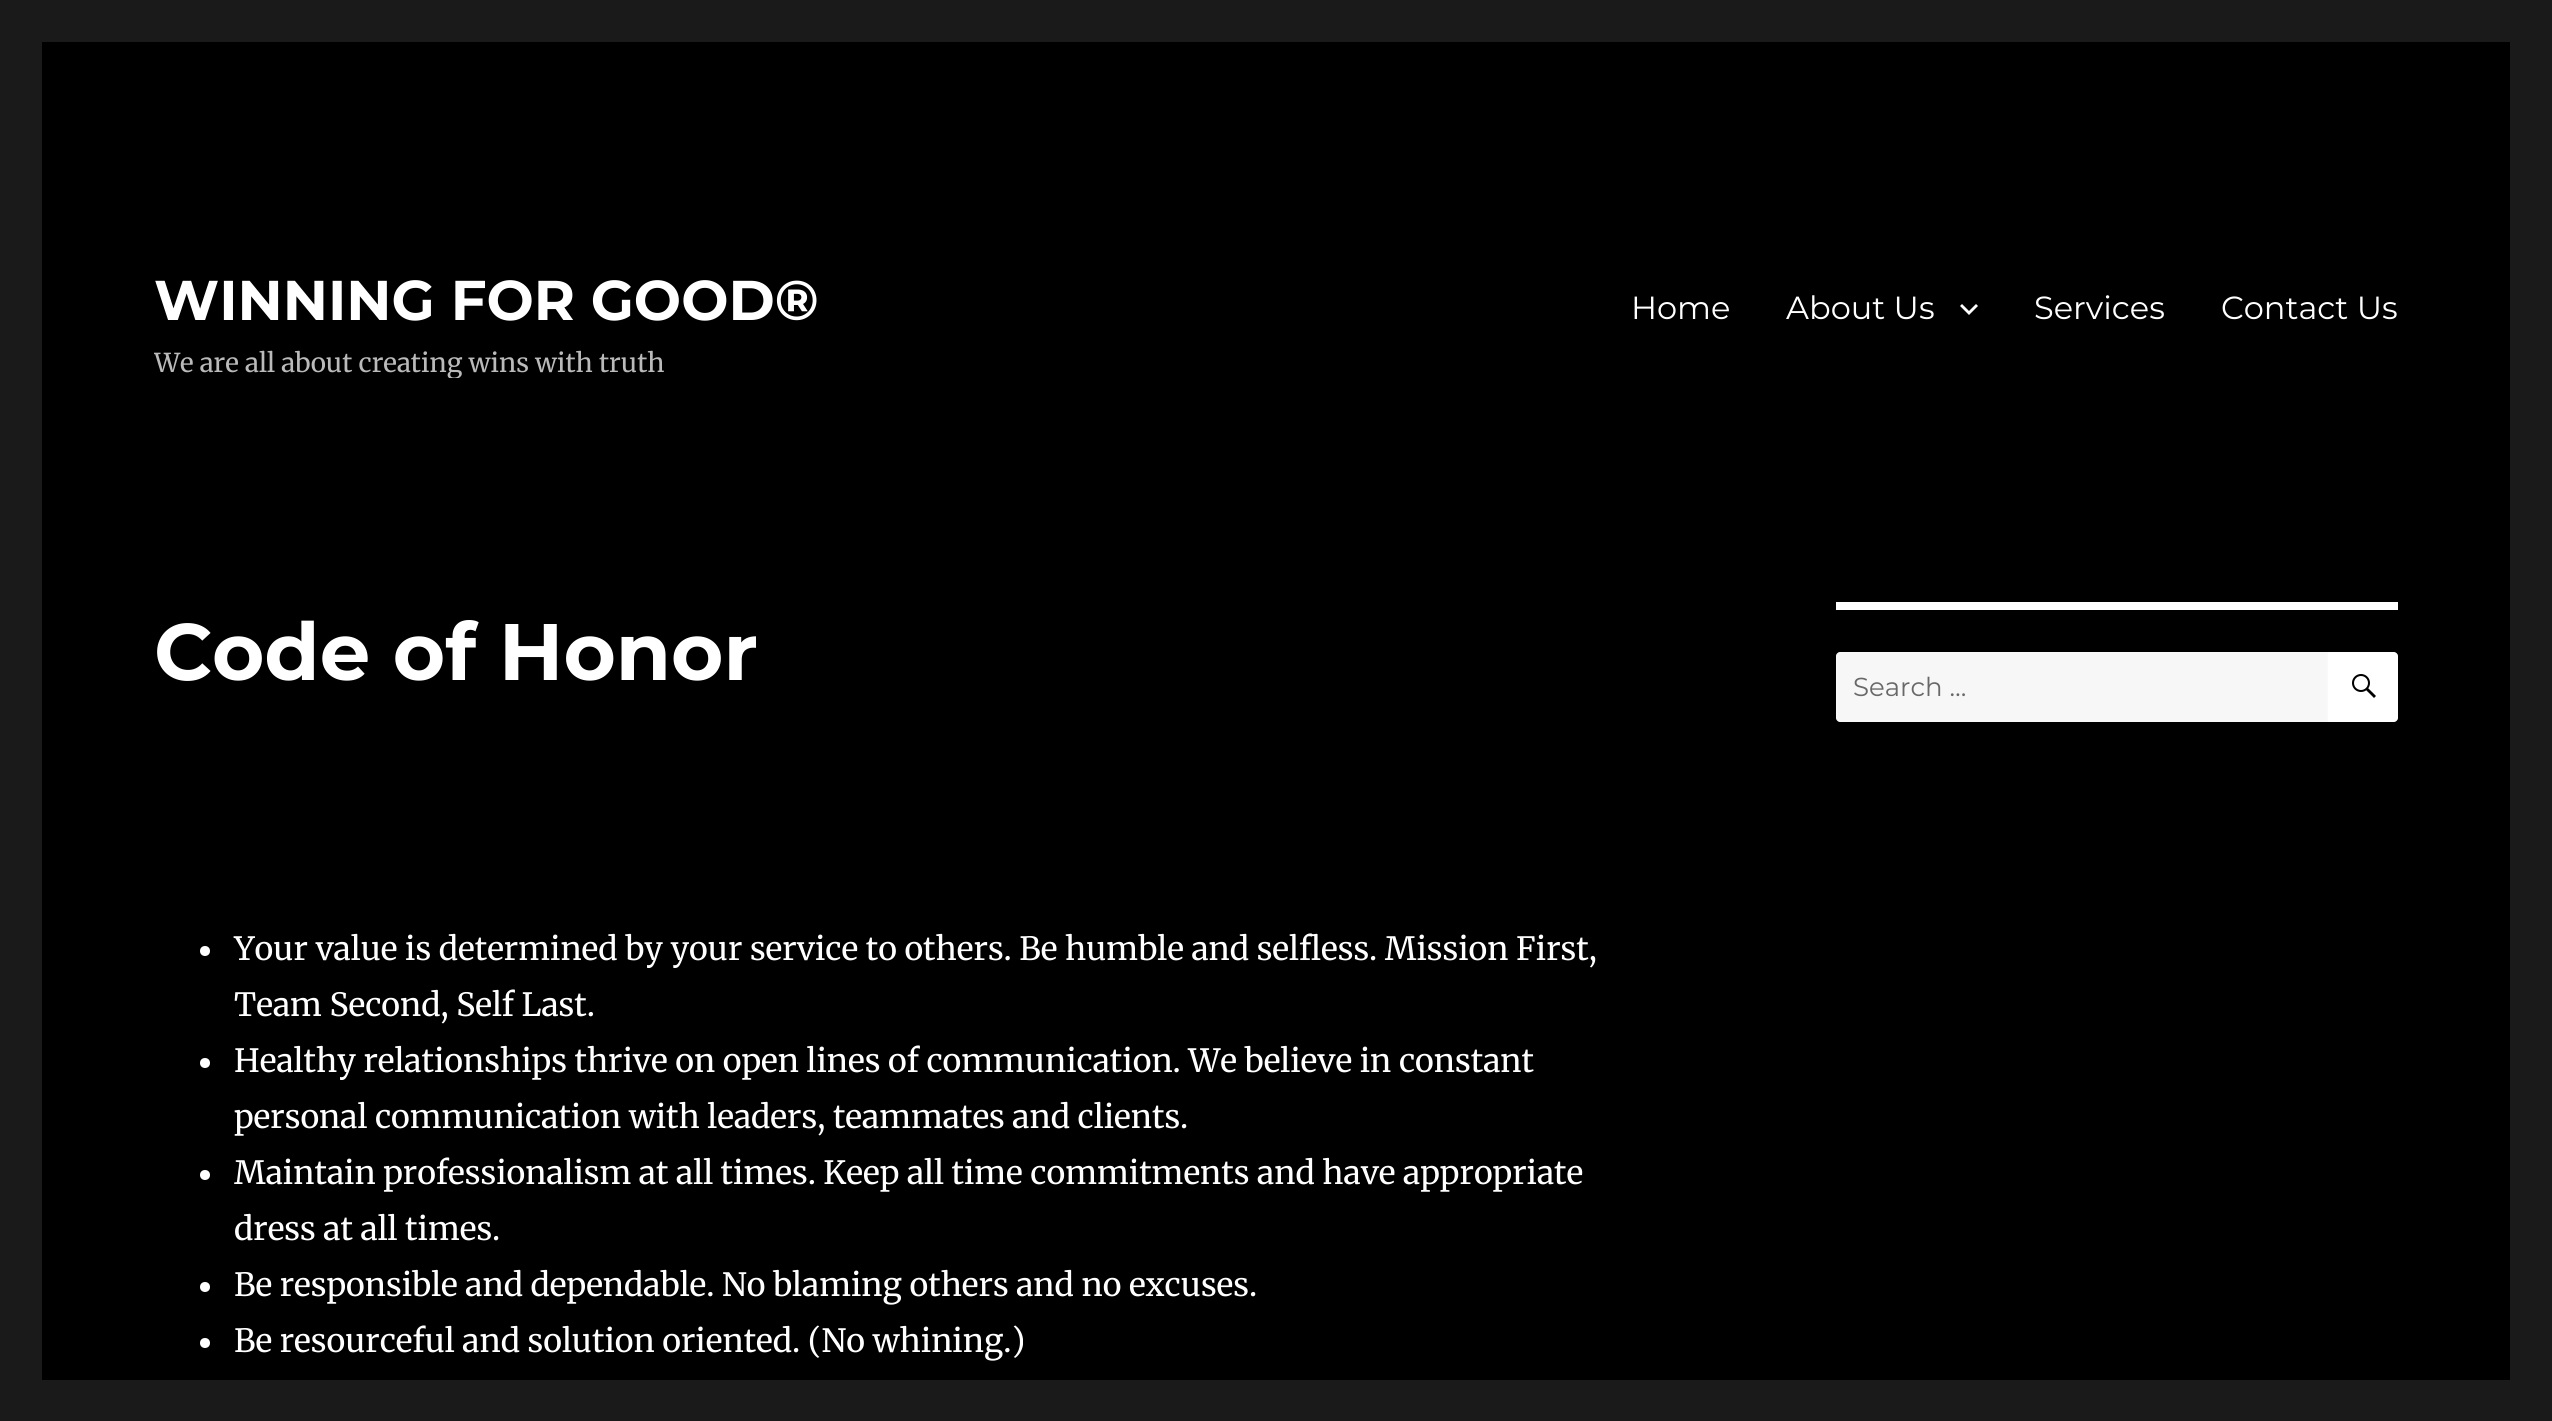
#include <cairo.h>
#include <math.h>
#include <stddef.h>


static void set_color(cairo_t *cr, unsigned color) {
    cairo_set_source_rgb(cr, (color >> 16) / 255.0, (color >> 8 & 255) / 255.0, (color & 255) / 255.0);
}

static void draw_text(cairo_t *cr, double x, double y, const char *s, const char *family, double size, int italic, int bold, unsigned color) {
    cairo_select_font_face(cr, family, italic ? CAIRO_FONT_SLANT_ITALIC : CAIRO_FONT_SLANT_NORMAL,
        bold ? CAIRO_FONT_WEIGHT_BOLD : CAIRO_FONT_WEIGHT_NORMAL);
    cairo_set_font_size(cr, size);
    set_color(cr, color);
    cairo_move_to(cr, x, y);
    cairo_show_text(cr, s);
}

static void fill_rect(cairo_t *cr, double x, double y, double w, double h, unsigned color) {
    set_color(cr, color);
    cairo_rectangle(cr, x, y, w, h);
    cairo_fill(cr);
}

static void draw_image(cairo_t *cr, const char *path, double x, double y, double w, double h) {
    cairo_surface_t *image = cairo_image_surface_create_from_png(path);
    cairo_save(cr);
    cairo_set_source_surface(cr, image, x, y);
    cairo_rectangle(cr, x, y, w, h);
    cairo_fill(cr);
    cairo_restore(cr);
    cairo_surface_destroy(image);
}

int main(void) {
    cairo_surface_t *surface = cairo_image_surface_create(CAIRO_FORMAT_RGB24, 2552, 1421);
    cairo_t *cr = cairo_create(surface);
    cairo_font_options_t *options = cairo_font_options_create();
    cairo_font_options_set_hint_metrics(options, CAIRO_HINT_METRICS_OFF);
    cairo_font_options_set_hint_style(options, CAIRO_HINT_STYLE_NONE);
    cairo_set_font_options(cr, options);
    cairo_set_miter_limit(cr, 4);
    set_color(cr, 0x1A1A1A);
    cairo_paint(cr);
    fill_rect(cr, 42, 42, 2468, 1338, 0x000000);
    draw_text(cr, 154, 320, "WINNING FOR GOOD®", "Montserrat", 56, 0, 1, 0xFFFFFF);
    cairo_save(cr);
    cairo_rectangle(cr, 154, 266, 664, 112);
    cairo_clip(cr);
    draw_text(cr, 154, 372, "We are all about creating wins with truth", "Merriweather", 26, 0, 0, 0xBABABA);
    cairo_restore(cr);
    draw_text(cr, 1631, 319, "Home", "Montserrat", 32, 0, 0, 0xFFFFFF);
    draw_text(cr, 1786, 319, "About Us", "Montserrat", 32, 0, 0, 0xFFFFFF);
    cairo_new_path(cr);
    cairo_move_to(cr, 1976, 304);
    cairo_line_to(cr, 1978, 306);
    cairo_line_to(cr, 1969, 315);
    cairo_line_to(cr, 1960, 306);
    cairo_line_to(cr, 1962, 304);
    cairo_line_to(cr, 1969, 311);
    cairo_close_path(cr);
    cairo_fill(cr);
    draw_text(cr, 2034, 319, "Services", "Montserrat", 32, 0, 0, 0xFFFFFF);
    draw_text(cr, 2221, 319, "Contact Us", "Montserrat", 32, 0, 0, 0xFFFFFF);
    draw_text(cr, 154, 680, "Code of Honor", "Montserrat", 80, 0, 1, 0xFFFFFF);
    cairo_new_path(cr);
    cairo_arc(cr, 205, 951, 5, 0, 2 * M_PI);
    cairo_fill(cr);
    draw_text(cr, 234, 960, "Your value is determined by your service to others. Be humble and selfless. Mission First,", "Merriweather", 32, 0, 0, 0xFFFFFF);
    draw_text(cr, 234, 1016, "Team Second, Self Last.", "Merriweather", 32, 0, 0, 0xFFFFFF);
    cairo_new_path(cr);
    cairo_arc(cr, 205, 1063, 5, 0, 2 * M_PI);
    cairo_fill(cr);
    draw_text(cr, 234, 1072, "Healthy relationships thrive on open lines of communication. We believe in constant", "Merriweather", 32, 0, 0, 0xFFFFFF);
    draw_text(cr, 234, 1128, "personal communication with leaders, teammates and clients.", "Merriweather", 32, 0, 0, 0xFFFFFF);
    cairo_new_path(cr);
    cairo_arc(cr, 205, 1175, 5, 0, 2 * M_PI);
    cairo_fill(cr);
    draw_text(cr, 234, 1184, "Maintain professionalism at all times. Keep all time commitments and have appropriate", "Merriweather", 32, 0, 0, 0xFFFFFF);
    draw_text(cr, 234, 1240, "dress at all times.", "Merriweather", 32, 0, 0, 0xFFFFFF);
    cairo_new_path(cr);
    cairo_arc(cr, 205, 1287, 5, 0, 2 * M_PI);
    cairo_fill(cr);
    draw_text(cr, 234, 1296, "Be responsible and dependable. No blaming others and no excuses.", "Merriweather", 32, 0, 0, 0xFFFFFF);
    cairo_new_path(cr);
    cairo_arc(cr, 205, 1343, 5, 0, 2 * M_PI);
    cairo_fill(cr);
    draw_text(cr, 234, 1352, "Be resourceful and solution oriented. (No whining.)", "Merriweather", 32, 0, 0, 0xFFFFFF);
    fill_rect(cr, 1836, 602, 562, 8, 0xFFFFFF);
    set_color(cr, 0xF7F7F7);
    cairo_new_path(cr);
    cairo_move_to(cr, 1840, 652);
    cairo_line_to(cr, 2328, 652);
    cairo_line_to(cr, 2328, 722);
    cairo_line_to(cr, 1840, 722);
    cairo_curve_to(cr, 1838, 722, 1836, 720, 1836, 718);
    cairo_line_to(cr, 1836, 656);
    cairo_curve_to(cr, 1836, 654, 1838, 652, 1840, 652);
    cairo_close_path(cr);
    cairo_fill(cr);
    cairo_new_path(cr);
    cairo_move_to(cr, 1840, 653);
    cairo_line_to(cr, 2327, 653);
    cairo_line_to(cr, 2327, 721);
    cairo_line_to(cr, 1840, 721);
    cairo_curve_to(cr, 1838.5, 721, 1837, 719.5, 1837, 718);
    cairo_line_to(cr, 1837, 656);
    cairo_curve_to(cr, 1837, 654.5, 1838.5, 653, 1840, 653);
    cairo_close_path(cr);
    cairo_set_source_rgba(cr, 1, 1, 1, 0.2);
    cairo_stroke(cr);
    draw_text(cr, 1853, 696, "Search …", "Montserrat", 26, 0, 0, 0x686868);
    set_color(cr, 0xFFFFFF);
    cairo_new_path(cr);
    cairo_move_to(cr, 2328, 652);
    cairo_line_to(cr, 2394, 652);
    cairo_curve_to(cr, 2396, 652, 2398, 654, 2398, 656);
    cairo_line_to(cr, 2398, 718);
    cairo_curve_to(cr, 2398, 720, 2396, 722, 2394, 722);
    cairo_line_to(cr, 2328, 722);
    cairo_close_path(cr);
    cairo_fill(cr);
    draw_image(cr, "assets/img1.png", 2352, 674, 24, 24);
    cairo_surface_write_to_png(surface, "output.png");
    cairo_font_options_destroy(options);
    cairo_destroy(cr);
    cairo_surface_destroy(surface);
    return 0;
}
